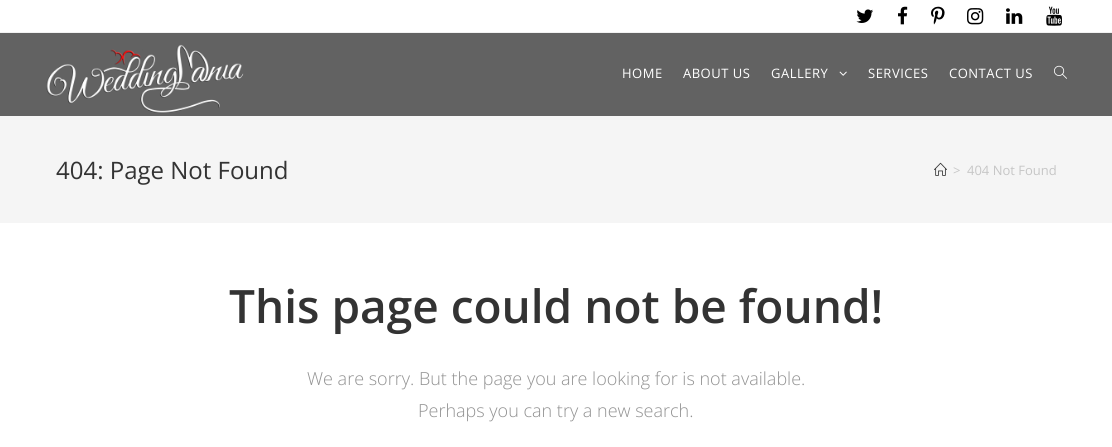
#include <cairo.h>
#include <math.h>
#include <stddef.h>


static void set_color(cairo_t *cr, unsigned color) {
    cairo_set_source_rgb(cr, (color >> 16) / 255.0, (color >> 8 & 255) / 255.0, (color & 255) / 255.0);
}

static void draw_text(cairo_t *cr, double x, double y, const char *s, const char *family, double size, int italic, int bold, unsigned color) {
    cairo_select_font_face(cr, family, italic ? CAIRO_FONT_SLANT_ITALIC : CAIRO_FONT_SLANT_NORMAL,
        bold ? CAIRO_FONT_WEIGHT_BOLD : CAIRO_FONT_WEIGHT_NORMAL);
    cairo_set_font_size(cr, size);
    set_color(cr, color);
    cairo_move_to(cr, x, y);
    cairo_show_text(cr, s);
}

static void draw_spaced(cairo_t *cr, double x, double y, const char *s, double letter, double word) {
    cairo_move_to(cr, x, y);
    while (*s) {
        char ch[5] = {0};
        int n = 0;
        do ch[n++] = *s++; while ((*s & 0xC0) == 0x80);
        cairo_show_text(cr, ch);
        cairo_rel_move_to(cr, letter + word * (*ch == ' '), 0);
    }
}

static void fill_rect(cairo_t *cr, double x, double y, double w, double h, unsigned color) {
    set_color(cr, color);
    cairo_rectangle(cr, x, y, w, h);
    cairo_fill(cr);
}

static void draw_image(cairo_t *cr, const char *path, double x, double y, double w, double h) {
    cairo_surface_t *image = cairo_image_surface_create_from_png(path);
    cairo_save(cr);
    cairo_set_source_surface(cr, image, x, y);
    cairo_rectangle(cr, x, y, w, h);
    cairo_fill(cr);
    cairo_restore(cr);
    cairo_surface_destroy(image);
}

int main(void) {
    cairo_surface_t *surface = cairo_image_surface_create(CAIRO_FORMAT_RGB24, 1112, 447);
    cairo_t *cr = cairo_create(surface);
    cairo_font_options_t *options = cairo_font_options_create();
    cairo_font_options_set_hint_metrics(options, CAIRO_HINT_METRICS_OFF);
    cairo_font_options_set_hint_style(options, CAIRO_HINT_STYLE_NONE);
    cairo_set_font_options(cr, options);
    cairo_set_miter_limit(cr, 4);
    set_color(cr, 0xFFFFFF);
    cairo_paint(cr);
    fill_rect(cr, 0, 32, 1112, 1, 0xF1F1F1);
    draw_image(cr, "assets/img1.png", 856, 9, 17, 14);
    draw_image(cr, "assets/img2.png", 898, 6, 10, 19);
    draw_image(cr, "assets/img3.png", 931, 6, 14, 19);
    draw_image(cr, "assets/img4.png", 967, 8, 17, 17);
    draw_image(cr, "assets/img5.png", 1006, 8, 17, 16);
    draw_image(cr, "assets/img6.png", 1046, 6, 16, 20);
    fill_rect(cr, 0, 33, 1112, 83, 0x626262);
    draw_image(cr, "assets/img7.png", 46, 44, 198, 70);
    cairo_select_font_face(cr, "Open Sans", CAIRO_FONT_SLANT_NORMAL, CAIRO_FONT_WEIGHT_NORMAL);
    cairo_set_font_size(cr, 13);
    set_color(cr, 0xFFFFFF);
    draw_spaced(cr, 622, 78, "HOME", 0.5, 0);
    draw_spaced(cr, 683, 78, "ABOUT US", 0.5, 0);
    draw_spaced(cr, 771, 78, "GALLERY", 0.5, 0);
    draw_image(cr, "assets/img8.png", 839, 71, 8, 5);
    draw_spaced(cr, 868, 78, "SERVICES", 0.5, 0);
    draw_spaced(cr, 949, 78, "CONTACT US", 0.5, 0);
    draw_image(cr, "assets/img9.png", 1054, 65, 13, 14);
    fill_rect(cr, 0, 116, 1112, 107, 0xF5F5F5);
    draw_text(cr, 56, 179, "404: Page Not Found", "Open Sans", 24, 0, 0, 0x333333);
    draw_image(cr, "assets/img10.png", 934, 162, 13, 14);
    draw_text(cr, 953, 175, ">", "Open Sans", 13, 0, 0, 0xC6C6C6);
    draw_text(cr, 967, 175, "404 Not Found", "Open Sans", 13, 0, 0, 0xC6C6C6);
    draw_text(cr, 229, 323, "This page could not be found!", "Open Sans SemiBold", 46, 0, 0, 0x333333);
    draw_text(cr, 307, 385, "We are sorry. But the page you are looking for is not available.", "Open Sans Light", 18, 0, 0, 0x929292);
    draw_text(cr, 418, 417, "Perhaps you can try a new search.", "Open Sans Light", 18, 0, 0, 0x929292);
    cairo_surface_write_to_png(surface, "output.png");
    cairo_font_options_destroy(options);
    cairo_destroy(cr);
    cairo_surface_destroy(surface);
    return 0;
}
